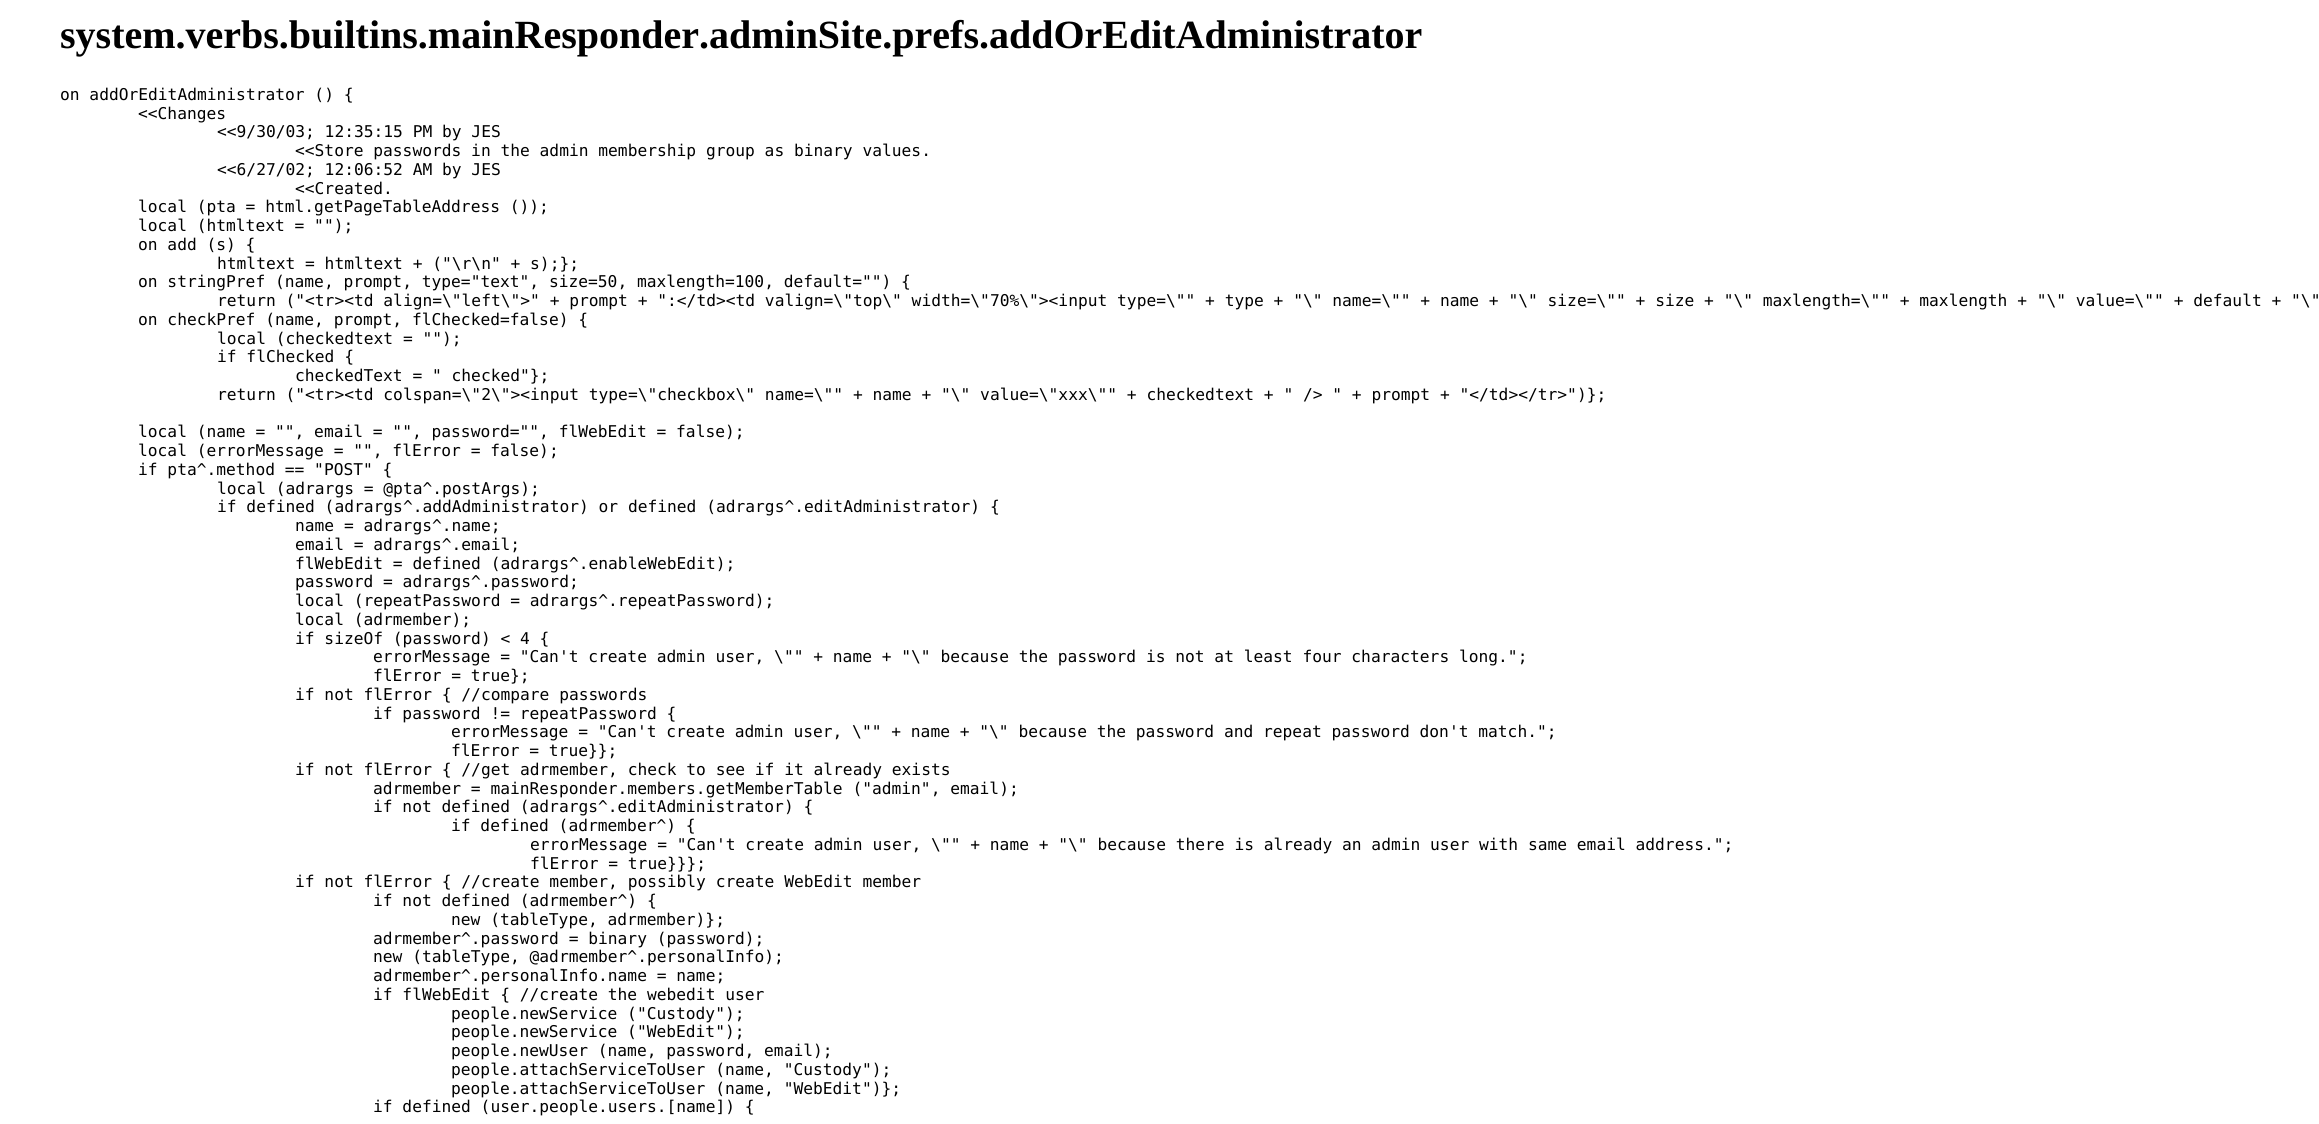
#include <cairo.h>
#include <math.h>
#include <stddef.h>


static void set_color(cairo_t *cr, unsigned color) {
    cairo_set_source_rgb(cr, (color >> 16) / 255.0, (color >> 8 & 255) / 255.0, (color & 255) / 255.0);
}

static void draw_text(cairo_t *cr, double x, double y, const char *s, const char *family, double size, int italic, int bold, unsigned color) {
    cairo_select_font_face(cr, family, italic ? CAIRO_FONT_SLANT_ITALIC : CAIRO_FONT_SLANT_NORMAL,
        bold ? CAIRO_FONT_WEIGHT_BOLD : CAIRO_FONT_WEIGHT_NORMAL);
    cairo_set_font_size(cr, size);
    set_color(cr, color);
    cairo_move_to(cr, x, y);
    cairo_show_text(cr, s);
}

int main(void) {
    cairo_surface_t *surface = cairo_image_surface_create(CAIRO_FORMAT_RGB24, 2319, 1124);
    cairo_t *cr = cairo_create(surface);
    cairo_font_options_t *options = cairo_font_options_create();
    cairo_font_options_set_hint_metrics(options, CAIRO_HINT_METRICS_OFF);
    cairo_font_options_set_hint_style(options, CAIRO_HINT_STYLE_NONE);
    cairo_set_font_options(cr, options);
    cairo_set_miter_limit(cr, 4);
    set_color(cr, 0xFFFFFF);
    cairo_paint(cr);
    draw_text(cr, 60, 48, "system.verbs.builtins.mainResponder.adminSite.prefs.addOrEditAdministrator", "Liberation Serif", 40, 0, 1, 0x000000);
    draw_text(cr, 60, 100, "on addOrEditAdministrator () {", "DejaVu Sans Mono", 16.25, 0, 0, 0x000000);
    draw_text(cr, 138, 119, "<<Changes", "DejaVu Sans Mono", 16.25, 0, 0, 0x000000);
    draw_text(cr, 217, 137, "<<9/30/03; 12:35:15 PM by JES", "DejaVu Sans Mono", 16.25, 0, 0, 0x000000);
    draw_text(cr, 295, 156, "<<Store passwords in the admin membership group as binary values.", "DejaVu Sans Mono", 16.25, 0, 0, 0x000000);
    draw_text(cr, 217, 175, "<<6/27/02; 12:06:52 AM by JES", "DejaVu Sans Mono", 16.25, 0, 0, 0x000000);
    draw_text(cr, 295, 194, "<<Created.", "DejaVu Sans Mono", 16.25, 0, 0, 0x000000);
    draw_text(cr, 138, 212, "local (pta = html.getPageTableAddress ());", "DejaVu Sans Mono", 16.25, 0, 0, 0x000000);
    draw_text(cr, 138, 231, "local (htmltext = \"\");", "DejaVu Sans Mono", 16.25, 0, 0, 0x000000);
    draw_text(cr, 138, 250, "on add (s) {", "DejaVu Sans Mono", 16.25, 0, 0, 0x000000);
    draw_text(cr, 217, 269, "htmltext = htmltext + (\"\\r\\n\" + s);};", "DejaVu Sans Mono", 16.25, 0, 0, 0x000000);
    draw_text(cr, 138, 287, "on stringPref (name, prompt, type=\"text\", size=50, maxlength=100, default=\"\") {", "DejaVu Sans Mono", 16.25, 0, 0, 0x000000);
    draw_text(cr, 217, 306, "return (\"<tr><td align=\\\"left\\\">\" + prompt + \":</td><td valign=\\\"top\\\" width=\\\"70%\\\"><input type=\\\"\" + type + \"\\\" name=\\\"\" + name + \"\\\" size=\\\"\" + size + \"\\\" maxlength=\\\"\" + maxlength + \"\\\" value=\\\"\" + default + \"\\\"", "DejaVu Sans Mono", 16.25, 0, 0, 0x000000);
    draw_text(cr, 138, 325, "on checkPref (name, prompt, flChecked=false) {", "DejaVu Sans Mono", 16.25, 0, 0, 0x000000);
    draw_text(cr, 217, 344, "local (checkedtext = \"\");", "DejaVu Sans Mono", 16.25, 0, 0, 0x000000);
    draw_text(cr, 217, 362, "if flChecked {", "DejaVu Sans Mono", 16.25, 0, 0, 0x000000);
    draw_text(cr, 295, 381, "checkedText = \" checked\"};", "DejaVu Sans Mono", 16.25, 0, 0, 0x000000);
    draw_text(cr, 217, 400, "return (\"<tr><td colspan=\\\"2\\\"><input type=\\\"checkbox\\\" name=\\\"\" + name + \"\\\" value=\\\"xxx\\\"\" + checkedtext + \" /> \" + prompt + \"</td></tr>\")};", "DejaVu Sans Mono", 16.25, 0, 0, 0x000000);
    draw_text(cr, 138, 437, "local (name = \"\", email = \"\", password=\"\", flWebEdit = false);", "DejaVu Sans Mono", 16.25, 0, 0, 0x000000);
    draw_text(cr, 138, 456, "local (errorMessage = \"\", flError = false);", "DejaVu Sans Mono", 16.25, 0, 0, 0x000000);
    draw_text(cr, 138, 475, "if pta^.method == \"POST\" {", "DejaVu Sans Mono", 16.25, 0, 0, 0x000000);
    draw_text(cr, 217, 494, "local (adrargs = @pta^.postArgs);", "DejaVu Sans Mono", 16.25, 0, 0, 0x000000);
    draw_text(cr, 217, 512, "if defined (adrargs^.addAdministrator) or defined (adrargs^.editAdministrator) {", "DejaVu Sans Mono", 16.25, 0, 0, 0x000000);
    draw_text(cr, 295, 531, "name = adrargs^.name;", "DejaVu Sans Mono", 16.25, 0, 0, 0x000000);
    draw_text(cr, 295, 550, "email = adrargs^.email;", "DejaVu Sans Mono", 16.25, 0, 0, 0x000000);
    draw_text(cr, 295, 569, "flWebEdit = defined (adrargs^.enableWebEdit);", "DejaVu Sans Mono", 16.25, 0, 0, 0x000000);
    draw_text(cr, 295, 587, "password = adrargs^.password;", "DejaVu Sans Mono", 16.25, 0, 0, 0x000000);
    draw_text(cr, 295, 606, "local (repeatPassword = adrargs^.repeatPassword);", "DejaVu Sans Mono", 16.25, 0, 0, 0x000000);
    draw_text(cr, 295, 625, "local (adrmember);", "DejaVu Sans Mono", 16.25, 0, 0, 0x000000);
    draw_text(cr, 295, 644, "if sizeOf (password) < 4 {", "DejaVu Sans Mono", 16.25, 0, 0, 0x000000);
    draw_text(cr, 373, 662, "errorMessage = \"Can't create admin user, \\\"\" + name + \"\\\" because the password is not at least four characters long.\";", "DejaVu Sans Mono", 16.25, 0, 0, 0x000000);
    draw_text(cr, 373, 681, "flError = true};", "DejaVu Sans Mono", 16.25, 0, 0, 0x000000);
    draw_text(cr, 295, 700, "if not flError { //compare passwords", "DejaVu Sans Mono", 16.25, 0, 0, 0x000000);
    draw_text(cr, 373, 719, "if password != repeatPassword {", "DejaVu Sans Mono", 16.25, 0, 0, 0x000000);
    draw_text(cr, 451, 737, "errorMessage = \"Can't create admin user, \\\"\" + name + \"\\\" because the password and repeat password don't match.\";", "DejaVu Sans Mono", 16.25, 0, 0, 0x000000);
    draw_text(cr, 451, 756, "flError = true}};", "DejaVu Sans Mono", 16.25, 0, 0, 0x000000);
    draw_text(cr, 295, 775, "if not flError { //get adrmember, check to see if it already exists", "DejaVu Sans Mono", 16.25, 0, 0, 0x000000);
    draw_text(cr, 373, 794, "adrmember = mainResponder.members.getMemberTable (\"admin\", email);", "DejaVu Sans Mono", 16.25, 0, 0, 0x000000);
    draw_text(cr, 373, 812, "if not defined (adrargs^.editAdministrator) {", "DejaVu Sans Mono", 16.25, 0, 0, 0x000000);
    draw_text(cr, 451, 831, "if defined (adrmember^) {", "DejaVu Sans Mono", 16.25, 0, 0, 0x000000);
    draw_text(cr, 530, 850, "errorMessage = \"Can't create admin user, \\\"\" + name + \"\\\" because there is already an admin user with same email address.\";", "DejaVu Sans Mono", 16.25, 0, 0, 0x000000);
    draw_text(cr, 530, 869, "flError = true}}};", "DejaVu Sans Mono", 16.25, 0, 0, 0x000000);
    draw_text(cr, 295, 887, "if not flError { //create member, possibly create WebEdit member", "DejaVu Sans Mono", 16.25, 0, 0, 0x000000);
    draw_text(cr, 373, 906, "if not defined (adrmember^) {", "DejaVu Sans Mono", 16.25, 0, 0, 0x000000);
    draw_text(cr, 451, 925, "new (tableType, adrmember)};", "DejaVu Sans Mono", 16.25, 0, 0, 0x000000);
    draw_text(cr, 373, 944, "adrmember^.password = binary (password);", "DejaVu Sans Mono", 16.25, 0, 0, 0x000000);
    draw_text(cr, 373, 962, "new (tableType, @adrmember^.personalInfo);", "DejaVu Sans Mono", 16.25, 0, 0, 0x000000);
    draw_text(cr, 373, 981, "adrmember^.personalInfo.name = name;", "DejaVu Sans Mono", 16.25, 0, 0, 0x000000);
    draw_text(cr, 373, 1000, "if flWebEdit { //create the webedit user", "DejaVu Sans Mono", 16.25, 0, 0, 0x000000);
    draw_text(cr, 451, 1019, "people.newService (\"Custody\");", "DejaVu Sans Mono", 16.25, 0, 0, 0x000000);
    draw_text(cr, 451, 1037, "people.newService (\"WebEdit\");", "DejaVu Sans Mono", 16.25, 0, 0, 0x000000);
    draw_text(cr, 451, 1056, "people.newUser (name, password, email);", "DejaVu Sans Mono", 16.25, 0, 0, 0x000000);
    draw_text(cr, 451, 1075, "people.attachServiceToUser (name, \"Custody\");", "DejaVu Sans Mono", 16.25, 0, 0, 0x000000);
    draw_text(cr, 451, 1094, "people.attachServiceToUser (name, \"WebEdit\")};", "DejaVu Sans Mono", 16.25, 0, 0, 0x000000);
    draw_text(cr, 373, 1112, "if defined (user.people.users.[name]) {", "DejaVu Sans Mono", 16.25, 0, 0, 0x000000);
    cairo_surface_write_to_png(surface, "output.png");
    cairo_font_options_destroy(options);
    cairo_destroy(cr);
    cairo_surface_destroy(surface);
    return 0;
}
